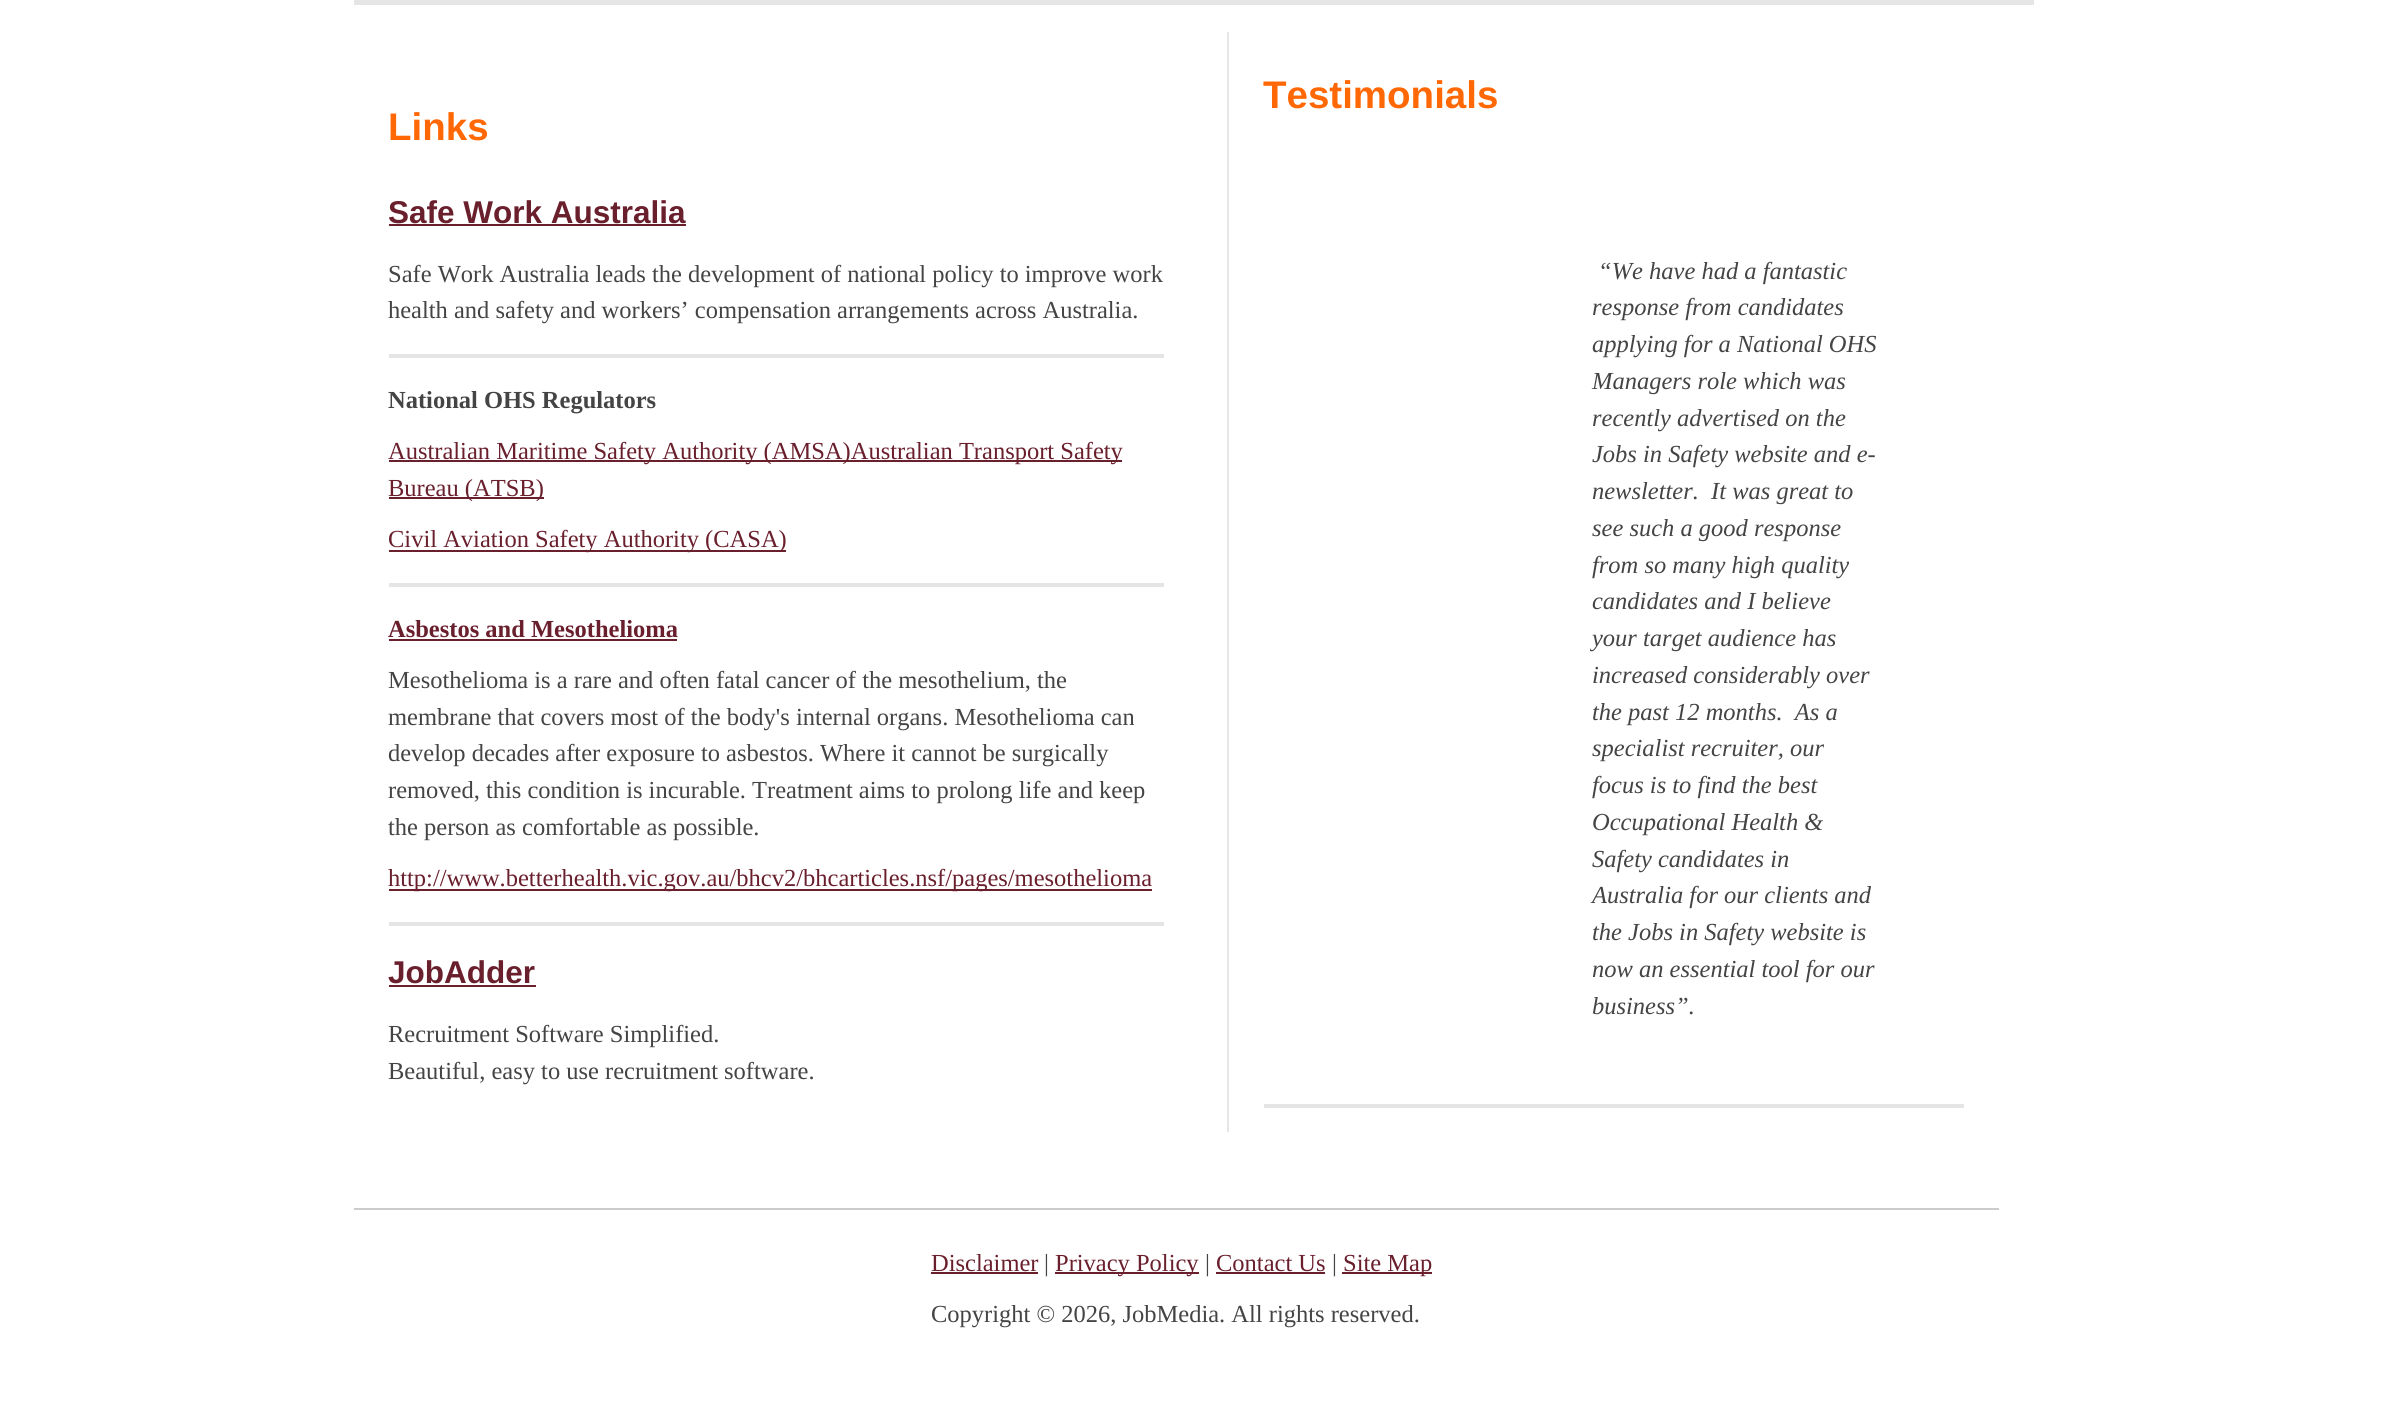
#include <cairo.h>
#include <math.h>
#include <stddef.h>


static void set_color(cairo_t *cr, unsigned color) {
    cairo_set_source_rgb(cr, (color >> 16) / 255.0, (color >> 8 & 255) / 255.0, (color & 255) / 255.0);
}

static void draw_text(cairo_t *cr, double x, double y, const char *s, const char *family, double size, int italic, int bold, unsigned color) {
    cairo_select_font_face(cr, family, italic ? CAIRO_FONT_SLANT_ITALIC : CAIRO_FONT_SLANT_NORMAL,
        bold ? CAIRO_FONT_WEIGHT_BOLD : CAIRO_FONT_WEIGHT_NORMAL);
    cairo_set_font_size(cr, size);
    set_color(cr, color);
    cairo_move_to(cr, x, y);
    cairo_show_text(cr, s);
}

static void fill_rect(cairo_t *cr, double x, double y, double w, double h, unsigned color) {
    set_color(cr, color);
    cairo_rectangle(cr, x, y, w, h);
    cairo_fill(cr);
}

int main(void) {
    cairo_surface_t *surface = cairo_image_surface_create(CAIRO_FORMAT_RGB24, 2384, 1416);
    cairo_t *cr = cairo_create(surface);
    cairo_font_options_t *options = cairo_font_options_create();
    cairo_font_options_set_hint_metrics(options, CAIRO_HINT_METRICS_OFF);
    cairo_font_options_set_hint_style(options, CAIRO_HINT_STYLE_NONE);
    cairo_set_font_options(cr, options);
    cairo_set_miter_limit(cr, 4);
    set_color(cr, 0xFFFFFF);
    cairo_paint(cr);
    fill_rect(cr, 354, 0, 1680, 5, 0xE5E5E5);
    fill_rect(cr, 1227, 32, 2, 1100, 0xE6E6E6);
    draw_text(cr, 1263, 108, "Testimonials", "Liberation Sans", 38.5, 0, 1, 0xFF6804);
    draw_text(cr, 388, 140, "Links", "Liberation Sans", 38.5, 0, 1, 0xFF6804);
    draw_text(cr, 388, 223, "Safe Work Australia", "Liberation Sans", 31.5, 0, 1, 0x6A1F2D);
    fill_rect(cr, 389, 224, 297, 2, 0x6A1F2D);
    draw_text(cr, 388, 282, "Safe Work Australia leads the development of national policy to improve work", "Liberation Serif", 24.5, 0, 0, 0x444444);
    draw_text(cr, 388, 318, "health and safety and workers’ compensation arrangements across Australia.", "Liberation Serif", 24.5, 0, 0, 0x444444);
    fill_rect(cr, 389, 354, 775, 4, 0xE5E5E5);
    draw_text(cr, 388, 408, "National OHS Regulators", "Liberation Serif", 24.5, 0, 1, 0x444444);
    fill_rect(cr, 389, 460, 733, 2, 0x6A1F2D);
    draw_text(cr, 388, 459, "Australian Maritime Safety Authority (AMSA)Australian Transport Safety", "Liberation Serif", 24.5, 0, 0, 0x6A1F2D);
    fill_rect(cr, 389, 497, 155, 2, 0x6A1F2D);
    draw_text(cr, 388, 496, "Bureau (ATSB)", "Liberation Serif", 24.5, 0, 0, 0x6A1F2D);
    fill_rect(cr, 389, 550, 397, 2, 0x6A1F2D);
    draw_text(cr, 388, 547, "Civil Aviation Safety Authority (CASA)", "Liberation Serif", 24.5, 0, 0, 0x6A1F2D);
    fill_rect(cr, 389, 583, 775, 4, 0xE5E5E5);
    draw_text(cr, 388, 637, "Asbestos and Mesothelioma", "Liberation Serif", 24.5, 0, 1, 0x6A1F2D);
    fill_rect(cr, 389, 639, 288, 2, 0x6A1F2D);
    draw_text(cr, 388, 688, "Mesothelioma is a rare and often fatal cancer of the mesothelium, the", "Liberation Serif", 24.5, 0, 0, 0x444444);
    draw_text(cr, 388, 725, "membrane that covers most of the body's internal organs. Mesothelioma can", "Liberation Serif", 24.5, 0, 0, 0x444444);
    draw_text(cr, 388, 761, "develop decades after exposure to asbestos. Where it cannot be surgically", "Liberation Serif", 24.5, 0, 0, 0x444444);
    draw_text(cr, 388, 798, "removed, this condition is incurable. Treatment aims to prolong life and keep", "Liberation Serif", 24.5, 0, 0, 0x444444);
    draw_text(cr, 388, 835, "the person as comfortable as possible.", "Liberation Serif", 24.5, 0, 0, 0x444444);
    fill_rect(cr, 389, 889, 763, 2, 0x6A1F2D);
    draw_text(cr, 388, 886, "http://www.betterhealth.vic.gov.au/bhcv2/bhcarticles.nsf/pages/mesothelioma", "Liberation Serif", 24.5, 0, 0, 0x6A1F2D);
    fill_rect(cr, 389, 922, 775, 4, 0xE5E5E5);
    draw_text(cr, 388, 983, "JobAdder", "Liberation Sans", 31.5, 0, 1, 0x6A1F2D);
    fill_rect(cr, 389, 985, 147, 2, 0x6A1F2D);
    draw_text(cr, 388, 1042, "Recruitment Software Simplified.", "Liberation Serif", 24.5, 0, 0, 0x444444);
    draw_text(cr, 388, 1079, "Beautiful, easy to use recruitment software.", "Liberation Serif", 24.5, 0, 0, 0x444444);
    draw_text(cr, 1598, 279, "“We have had a fantastic", "Liberation Serif", 24.5, 1, 0, 0x444444);
    draw_text(cr, 1592, 315, "response from candidates", "Liberation Serif", 24.5, 1, 0, 0x444444);
    draw_text(cr, 1592, 352, "applying for a National OHS", "Liberation Serif", 24.5, 1, 0, 0x444444);
    draw_text(cr, 1592, 389, "Managers role which was", "Liberation Serif", 24.5, 1, 0, 0x444444);
    draw_text(cr, 1592, 426, "recently advertised on the", "Liberation Serif", 24.5, 1, 0, 0x444444);
    draw_text(cr, 1592, 462, "Jobs in Safety website and e-", "Liberation Serif", 24.5, 1, 0, 0x444444);
    draw_text(cr, 1592, 499, "newsletter.  It was great to", "Liberation Serif", 24.5, 1, 0, 0x444444);
    draw_text(cr, 1592, 536, "see such a good response", "Liberation Serif", 24.5, 1, 0, 0x444444);
    draw_text(cr, 1592, 573, "from so many high quality", "Liberation Serif", 24.5, 1, 0, 0x444444);
    draw_text(cr, 1592, 609, "candidates and I believe", "Liberation Serif", 24.5, 1, 0, 0x444444);
    draw_text(cr, 1592, 646, "your target audience has", "Liberation Serif", 24.5, 1, 0, 0x444444);
    draw_text(cr, 1592, 683, "increased considerably over", "Liberation Serif", 24.5, 1, 0, 0x444444);
    draw_text(cr, 1592, 720, "the past 12 months.  As a", "Liberation Serif", 24.5, 1, 0, 0x444444);
    draw_text(cr, 1592, 756, "specialist recruiter, our", "Liberation Serif", 24.5, 1, 0, 0x444444);
    draw_text(cr, 1592, 793, "focus is to find the best", "Liberation Serif", 24.5, 1, 0, 0x444444);
    draw_text(cr, 1592, 830, "Occupational Health &", "Liberation Serif", 24.5, 1, 0, 0x444444);
    draw_text(cr, 1592, 867, "Safety candidates in", "Liberation Serif", 24.5, 1, 0, 0x444444);
    draw_text(cr, 1592, 903, "Australia for our clients and", "Liberation Serif", 24.5, 1, 0, 0x444444);
    draw_text(cr, 1592, 940, "the Jobs in Safety website is", "Liberation Serif", 24.5, 1, 0, 0x444444);
    draw_text(cr, 1592, 977, "now an essential tool for our", "Liberation Serif", 24.5, 1, 0, 0x444444);
    draw_text(cr, 1592, 1014, "business”.", "Liberation Serif", 24.5, 1, 0, 0x444444);
    fill_rect(cr, 1264, 1104, 700, 4, 0xE5E5E5);
    fill_rect(cr, 354, 1208, 1645, 2, 0xCCCCCC);
    draw_text(cr, 931, 1271, "Disclaimer", "Liberation Serif", 24.5, 0, 0, 0x6A1F2D);
    fill_rect(cr, 931, 1272, 107, 2, 0x6A1F2D);
    draw_text(cr, 1044, 1271, "|", "Liberation Serif", 24.5, 0, 0, 0x444444);
    fill_rect(cr, 1055, 1272, 144, 2, 0x6A1F2D);
    draw_text(cr, 1055, 1271, "Privacy Policy", "Liberation Serif", 24.5, 0, 0, 0x6A1F2D);
    draw_text(cr, 1205, 1271, "|", "Liberation Serif", 24.5, 0, 0, 0x444444);
    draw_text(cr, 1216, 1271, "Contact Us", "Liberation Serif", 24.5, 0, 0, 0x6A1F2D);
    fill_rect(cr, 1216, 1272, 109, 2, 0x6A1F2D);
    draw_text(cr, 1332, 1271, "|", "Liberation Serif", 24.5, 0, 0, 0x444444);
    fill_rect(cr, 1342, 1272, 90, 2, 0x6A1F2D);
    draw_text(cr, 1343, 1271, "Site Map", "Liberation Serif", 24.5, 0, 0, 0x6A1F2D);
    draw_text(cr, 931, 1322, "Copyright © 2026, JobMedia. All rights reserved.", "Liberation Serif", 24.5, 0, 0, 0x444444);
    cairo_surface_write_to_png(surface, "output.png");
    cairo_font_options_destroy(options);
    cairo_destroy(cr);
    cairo_surface_destroy(surface);
    return 0;
}
